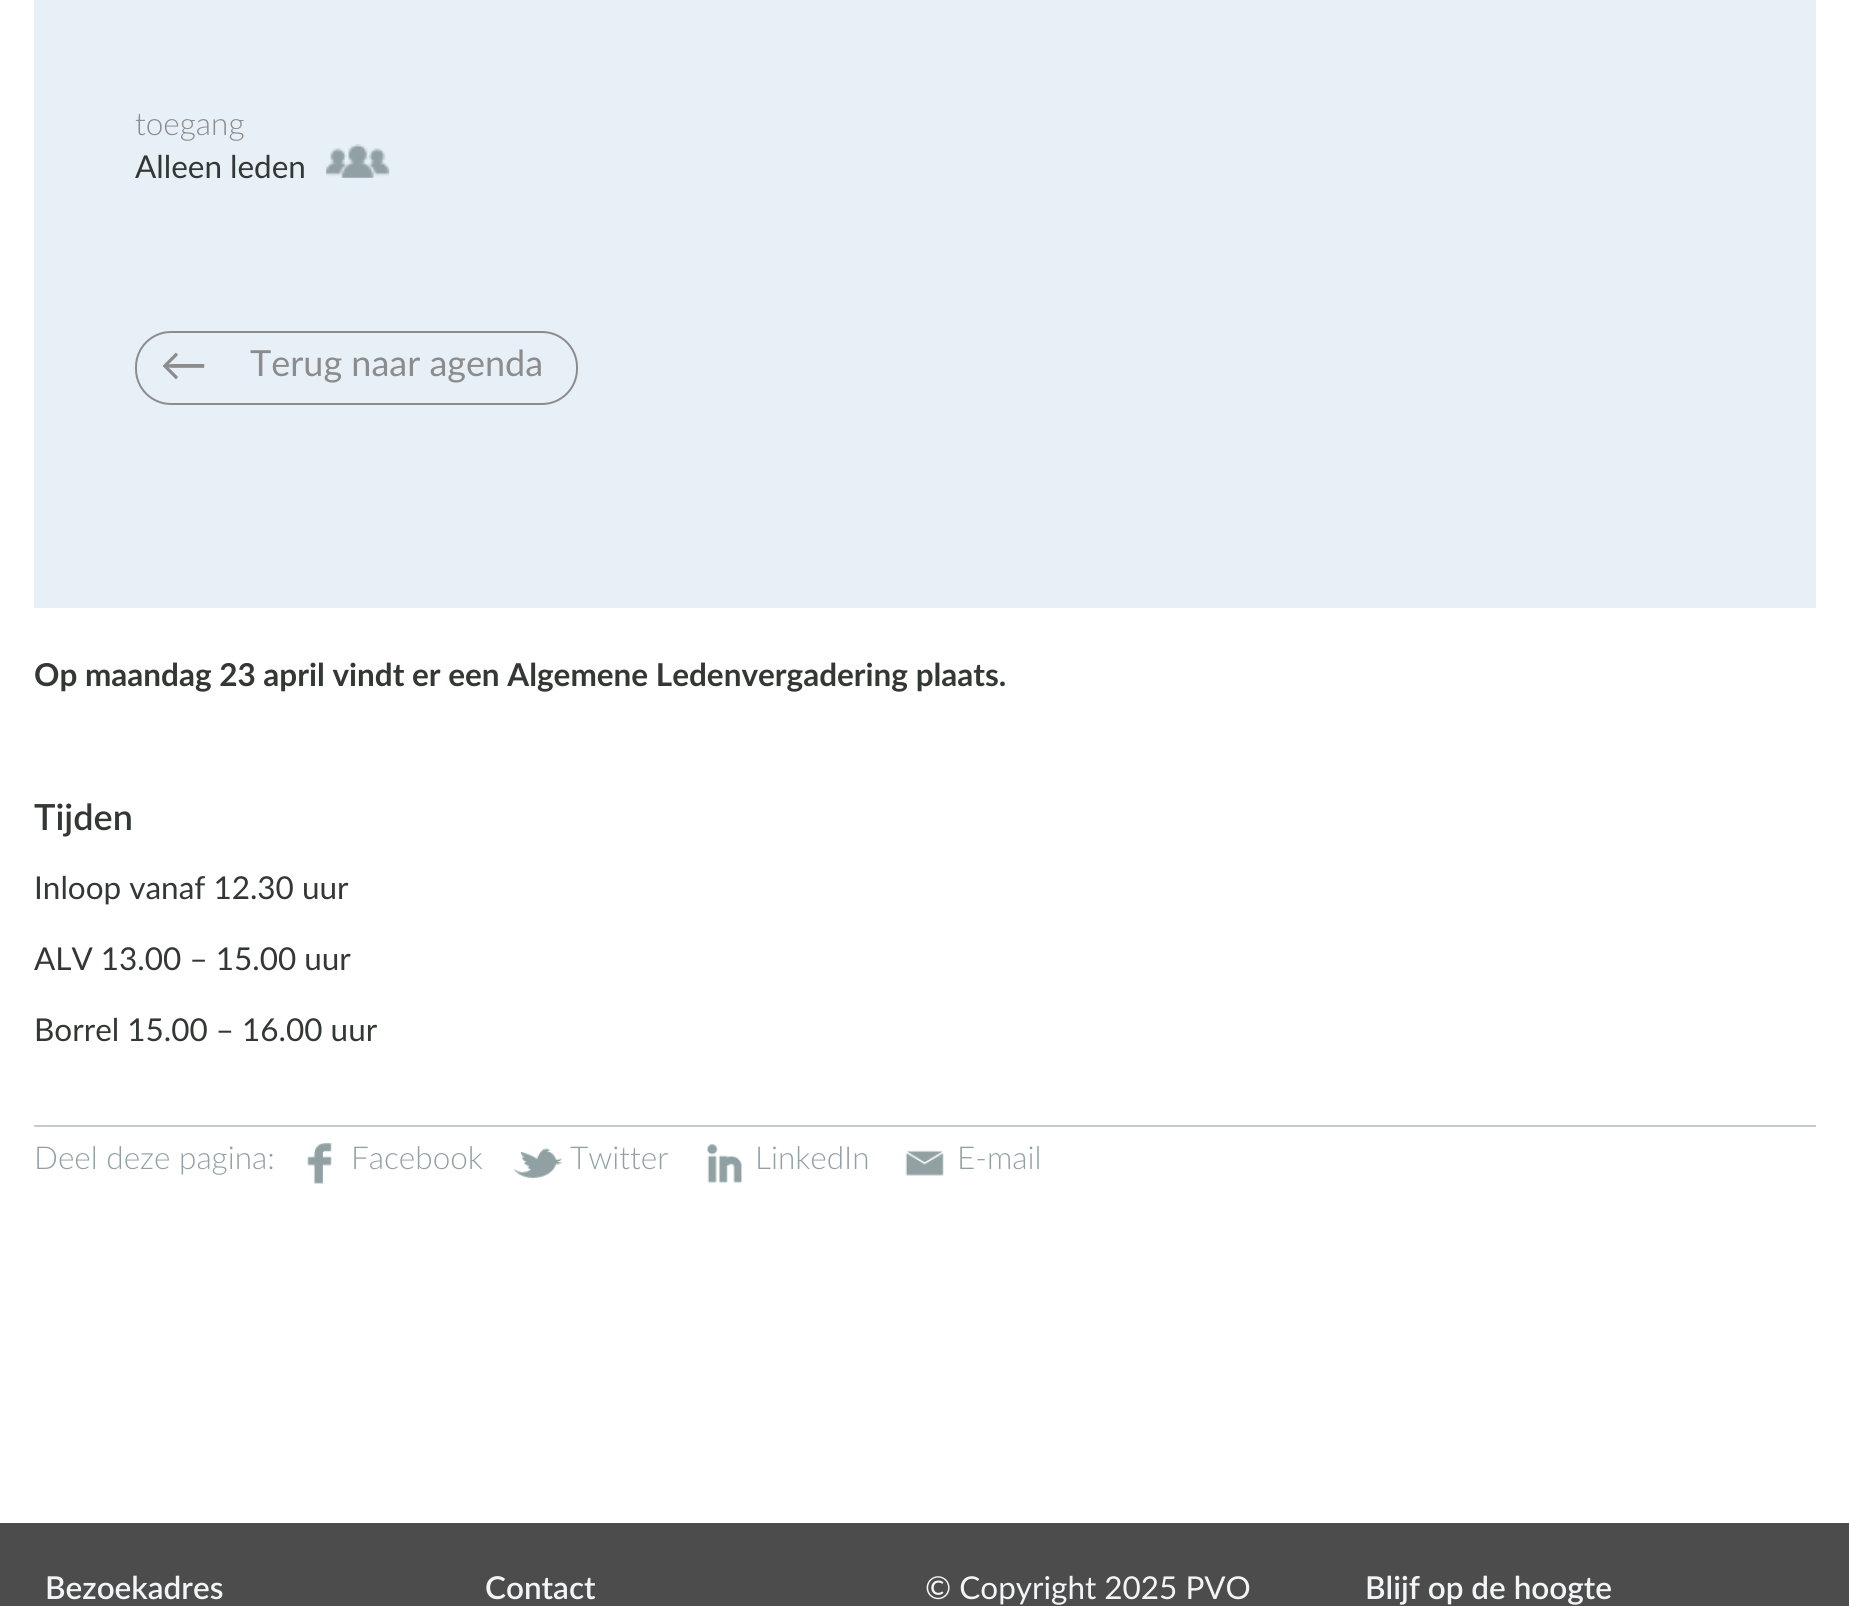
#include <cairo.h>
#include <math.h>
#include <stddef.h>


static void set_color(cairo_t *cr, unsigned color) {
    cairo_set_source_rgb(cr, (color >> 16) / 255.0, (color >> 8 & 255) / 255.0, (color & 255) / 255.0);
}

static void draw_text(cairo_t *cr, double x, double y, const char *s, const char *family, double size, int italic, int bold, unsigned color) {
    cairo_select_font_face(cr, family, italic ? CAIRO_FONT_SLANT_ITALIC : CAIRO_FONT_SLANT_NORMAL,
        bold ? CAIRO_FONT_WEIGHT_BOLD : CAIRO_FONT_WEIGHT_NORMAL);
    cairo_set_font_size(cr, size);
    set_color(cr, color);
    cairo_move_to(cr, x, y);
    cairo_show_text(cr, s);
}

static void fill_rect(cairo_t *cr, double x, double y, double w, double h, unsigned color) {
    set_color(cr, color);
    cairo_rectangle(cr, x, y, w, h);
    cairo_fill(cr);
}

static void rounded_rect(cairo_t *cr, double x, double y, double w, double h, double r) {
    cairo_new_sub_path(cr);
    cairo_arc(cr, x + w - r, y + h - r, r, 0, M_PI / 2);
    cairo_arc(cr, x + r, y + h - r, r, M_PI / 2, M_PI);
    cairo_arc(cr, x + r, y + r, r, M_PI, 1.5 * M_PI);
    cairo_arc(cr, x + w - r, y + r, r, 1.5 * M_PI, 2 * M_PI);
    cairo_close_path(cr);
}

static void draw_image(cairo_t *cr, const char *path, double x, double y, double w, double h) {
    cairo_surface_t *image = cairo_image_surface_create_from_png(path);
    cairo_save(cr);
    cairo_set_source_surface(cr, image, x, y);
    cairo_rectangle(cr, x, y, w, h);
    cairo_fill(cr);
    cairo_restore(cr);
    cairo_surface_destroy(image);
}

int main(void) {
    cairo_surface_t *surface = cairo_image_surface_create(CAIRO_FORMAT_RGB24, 1849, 1606);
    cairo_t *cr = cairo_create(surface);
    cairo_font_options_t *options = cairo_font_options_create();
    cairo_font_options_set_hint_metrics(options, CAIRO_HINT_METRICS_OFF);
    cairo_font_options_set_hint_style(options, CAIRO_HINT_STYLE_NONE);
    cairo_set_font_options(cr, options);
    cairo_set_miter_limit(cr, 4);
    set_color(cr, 0xFFFFFF);
    cairo_paint(cr);
    fill_rect(cr, 34, 0, 1782, 608, 0xE8F0F7);
    draw_text(cr, 135, 135, "toegang", "Lato Light", 31.5, 0, 0, 0x8C8C8C);
    draw_text(cr, 135, 178, "Alleen leden", "Lato", 31.5, 0, 0, 0x333834);
    draw_image(cr, "assets/img1.png", 326, 144, 64, 34);
    rounded_rect(cr, 136, 332, 441, 72, 35);
    set_color(cr, 0x8C8C8C);
    cairo_stroke(cr);
    draw_text(cr, 160, 381, "←", "Lato", 47, 0, 0, 0x8C8C8C);
    draw_text(cr, 250, 376, "Terug naar agenda", "Lato", 36, 0, 0, 0x8C8C8C);
    draw_text(cr, 34, 686, "Op maandag 23 april vindt er een Algemene Ledenvergadering plaats.", "Lato", 31.5, 0, 1, 0x333834);
    draw_text(cr, 34, 830, "Tijden", "Lato SemiBold", 36, 0, 0, 0x333834);
    draw_text(cr, 34, 899, "Inloop vanaf 12.30 uur", "Lato", 31.5, 0, 0, 0x333834);
    draw_text(cr, 34, 970, "ALV 13.00 – 15.00 uur", "Lato", 31.5, 0, 0, 0x333834);
    draw_text(cr, 34, 1041, "Borrel 15.00 – 16.00 uur", "Lato", 31.5, 0, 0, 0x333834);
    fill_rect(cr, 34, 1125, 1782, 2, 0xC3CBCC);
    draw_text(cr, 34, 1169, "Deel deze pagina:", "Lato Light", 31.5, 0, 0, 0x91A1A3);
    draw_image(cr, "assets/img2.png", 307, 1143, 25, 41);
    draw_text(cr, 351, 1169, "Facebook", "Lato Light", 31.5, 0, 0, 0x91A1A3);
    draw_image(cr, "assets/img3.png", 513, 1148, 49, 30);
    draw_text(cr, 570, 1169, "Twitter", "Lato Light", 31.5, 0, 0, 0x91A1A3);
    draw_image(cr, "assets/img4.png", 707, 1144, 35, 39);
    draw_text(cr, 755, 1169, "LinkedIn", "Lato Light", 31.5, 0, 0, 0x91A1A3);
    draw_image(cr, "assets/img5.png", 905, 1150, 39, 26);
    draw_text(cr, 957, 1169, "E-mail", "Lato Light", 31.5, 0, 0, 0x91A1A3);
    fill_rect(cr, 0, 1523, 1849, 83, 0x4C4C4C);
    draw_text(cr, 45, 1599, "Bezoekadres", "Lato SemiBold", 31.5, 0, 0, 0xF2F4F5);
    draw_text(cr, 485, 1599, "Contact", "Lato SemiBold", 31.5, 0, 0, 0xF2F4F5);
    draw_text(cr, 925, 1599, "© Copyright 2025 PVO", "Lato", 31.5, 0, 0, 0xF2F4F5);
    draw_text(cr, 1365, 1599, "Blijf op de hoogte", "Lato SemiBold", 31.5, 0, 0, 0xF2F4F5);
    cairo_surface_write_to_png(surface, "output.png");
    cairo_font_options_destroy(options);
    cairo_destroy(cr);
    cairo_surface_destroy(surface);
    return 0;
}
